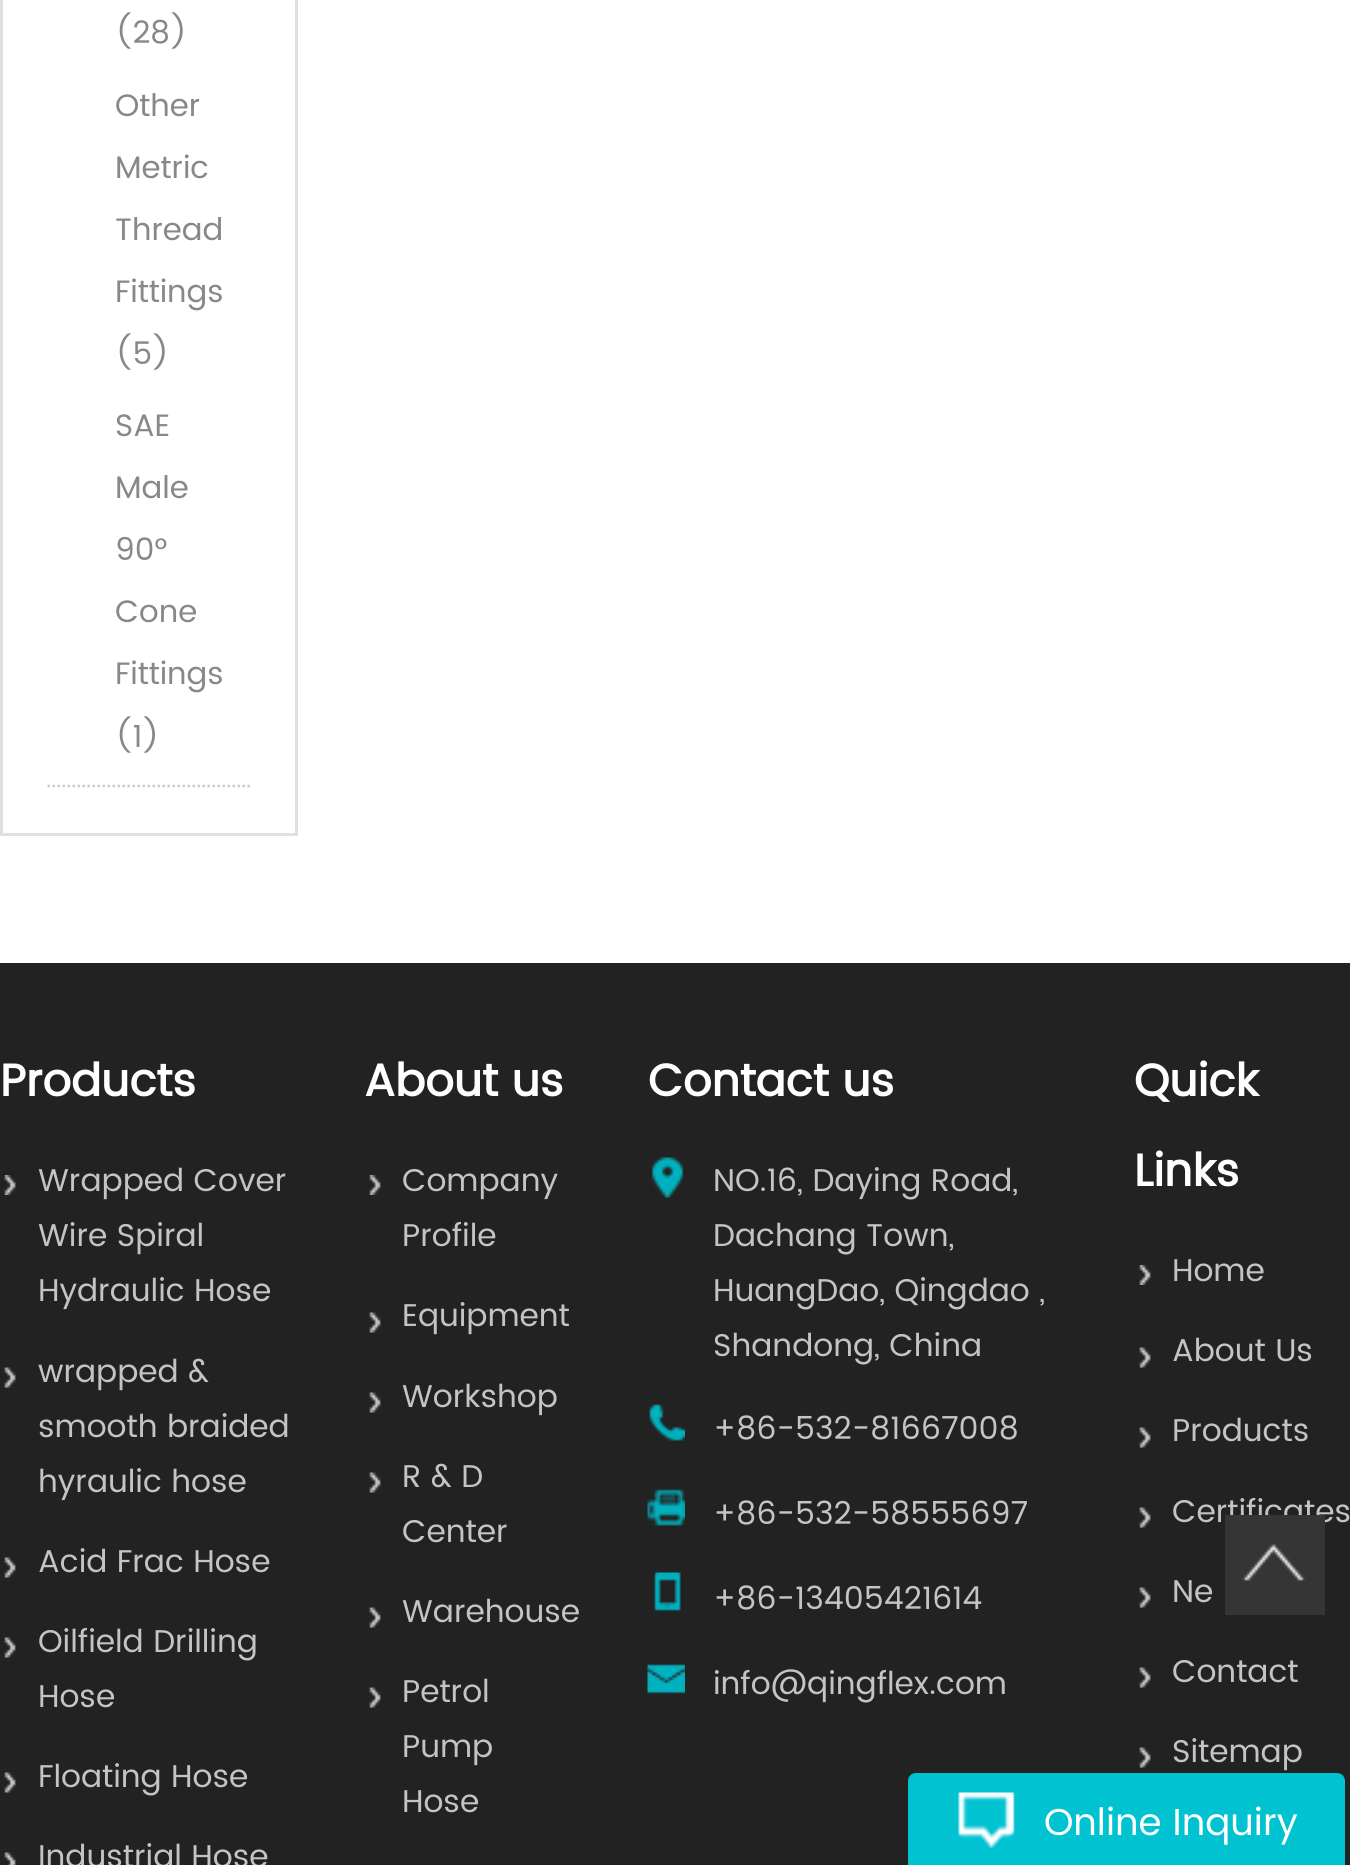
#include <cairo.h>
#include <math.h>
#include <stddef.h>


static void set_color(cairo_t *cr, unsigned color) {
    cairo_set_source_rgb(cr, (color >> 16) / 255.0, (color >> 8 & 255) / 255.0, (color & 255) / 255.0);
}

static void draw_text(cairo_t *cr, double x, double y, const char *s, const char *family, double size, int italic, int bold, unsigned color) {
    cairo_select_font_face(cr, family, italic ? CAIRO_FONT_SLANT_ITALIC : CAIRO_FONT_SLANT_NORMAL,
        bold ? CAIRO_FONT_WEIGHT_BOLD : CAIRO_FONT_WEIGHT_NORMAL);
    cairo_set_font_size(cr, size);
    set_color(cr, color);
    cairo_move_to(cr, x, y);
    cairo_show_text(cr, s);
}

static void fill_rect(cairo_t *cr, double x, double y, double w, double h, unsigned color) {
    set_color(cr, color);
    cairo_rectangle(cr, x, y, w, h);
    cairo_fill(cr);
}

static void draw_image(cairo_t *cr, const char *path, double x, double y, double w, double h) {
    cairo_surface_t *image = cairo_image_surface_create_from_png(path);
    cairo_save(cr);
    cairo_set_source_surface(cr, image, x, y);
    cairo_rectangle(cr, x, y, w, h);
    cairo_fill(cr);
    cairo_restore(cr);
    cairo_surface_destroy(image);
}

int main(void) {
    cairo_surface_t *surface = cairo_image_surface_create(CAIRO_FORMAT_RGB24, 1350, 1865);
    cairo_t *cr = cairo_create(surface);
    cairo_font_options_t *options = cairo_font_options_create();
    cairo_font_options_set_hint_metrics(options, CAIRO_HINT_METRICS_OFF);
    cairo_font_options_set_hint_style(options, CAIRO_HINT_STYLE_NONE);
    cairo_set_font_options(cr, options);
    cairo_set_miter_limit(cr, 4);
    set_color(cr, 0xFFFFFF);
    cairo_paint(cr);
    fill_rect(cr, 295, 0, 3, 835, 0xE0E0E0);
    fill_rect(cr, 0, 833, 298, 3, 0xE0E0E0);
    fill_rect(cr, 0, 0, 3, 835, 0xE0E0E0);
    cairo_new_path(cr);
    cairo_move_to(cr, 47.5, 786);
    cairo_line_to(cr, 250, 786);
    set_color(cr, 0xCCCCCC);
    cairo_set_line_width(cr, 2.5);
    cairo_set_dash(cr, (double[]){2.5, 2.5}, 2, 0);
    cairo_stroke(cr);
    draw_text(cr, 115, 43, "(28)", "Poppins", 31, 0, 0, 0x888888);
    draw_text(cr, 115, 116, "Other", "Poppins", 31, 0, 0, 0x888888);
    draw_text(cr, 115, 178, "Metric", "Poppins", 31, 0, 0, 0x888888);
    draw_text(cr, 115, 240, "Thread", "Poppins", 31, 0, 0, 0x888888);
    draw_text(cr, 115, 302, "Fittings", "Poppins", 31, 0, 0, 0x888888);
    draw_text(cr, 115, 364, "(5)", "Poppins", 31, 0, 0, 0x888888);
    draw_text(cr, 115, 436, "SAE", "Poppins", 31, 0, 0, 0x888888);
    draw_text(cr, 115, 498, "Male", "Poppins", 31, 0, 0, 0x888888);
    draw_text(cr, 115, 560, "90°", "Poppins", 31, 0, 0, 0x888888);
    draw_text(cr, 115, 622, "Cone", "Poppins", 31, 0, 0, 0x888888);
    draw_text(cr, 115, 684, "Fittings", "Poppins", 31, 0, 0, 0x888888);
    draw_text(cr, 115, 747, "(1)", "Poppins", 31, 0, 0, 0x888888);
    fill_rect(cr, 0, 963, 1350, 902, 0x222222);
    draw_text(cr, 0, 1096, "Products", "Poppins", 45, 0, 1, 0xFFFFFF);
    draw_image(cr, "assets/img1.png", 4, 1175, 12, 20);
    draw_text(cr, 38, 1191, "Wrapped Cover", "Poppins", 31.5, 0, 0, 0xC4C4C4);
    draw_text(cr, 38, 1246, "Wire Spiral", "Poppins", 31.5, 0, 0, 0xC4C4C4);
    draw_text(cr, 38, 1301, "Hydraulic Hose", "Poppins", 31.5, 0, 0, 0xC4C4C4);
    draw_image(cr, "assets/img2.png", 4, 1367, 12, 21);
    draw_text(cr, 38, 1382, "wrapped &", "Poppins", 31.5, 0, 0, 0xC4C4C4);
    draw_text(cr, 38, 1437, "smooth braided", "Poppins", 31.5, 0, 0, 0xC4C4C4);
    draw_text(cr, 38, 1492, "hyraulic hose", "Poppins", 31.5, 0, 0, 0xC4C4C4);
    draw_image(cr, "assets/img2.png", 4, 1557, 12, 21);
    draw_text(cr, 38, 1572, "Acid Frac Hose", "Poppins", 31.5, 0, 0, 0xC4C4C4);
    draw_image(cr, "assets/img2.png", 4, 1637, 12, 21);
    draw_text(cr, 38, 1652, "Oilfield Drilling", "Poppins", 31.5, 0, 0, 0xC4C4C4);
    draw_text(cr, 38, 1707, "Hose", "Poppins", 31.5, 0, 0, 0xC4C4C4);
    draw_image(cr, "assets/img2.png", 4, 1772, 12, 21);
    draw_text(cr, 38, 1787, "Floating Hose", "Poppins", 31.5, 0, 0, 0xC4C4C4);
    draw_image(cr, "assets/img3.png", 4, 1852, 12, 13);
    draw_text(cr, 38, 1867, "Industrial Hose", "Poppins", 31.5, 0, 0, 0xC4C4C4);
    draw_text(cr, 364, 1096, "About us", "Poppins", 45, 0, 1, 0xFFFFFF);
    draw_image(cr, "assets/img1.png", 369, 1175, 12, 20);
    draw_text(cr, 402, 1191, "Company", "Poppins", 31.5, 0, 0, 0xC4C4C4);
    draw_text(cr, 402, 1246, "Profile", "Poppins", 31.5, 0, 0, 0xC4C4C4);
    draw_image(cr, "assets/img2.png", 369, 1312, 12, 21);
    draw_text(cr, 402, 1326, "Equipment", "Poppins", 31.5, 0, 0, 0xC4C4C4);
    draw_image(cr, "assets/img2.png", 369, 1392, 12, 21);
    draw_text(cr, 402, 1407, "Workshop", "Poppins", 31.5, 0, 0, 0xC4C4C4);
    draw_image(cr, "assets/img2.png", 369, 1472, 12, 21);
    draw_text(cr, 402, 1487, "R & D", "Poppins", 31.5, 0, 0, 0xC4C4C4);
    draw_text(cr, 402, 1542, "Center", "Poppins", 31.5, 0, 0, 0xC4C4C4);
    draw_image(cr, "assets/img2.png", 369, 1607, 12, 21);
    draw_text(cr, 402, 1622, "Warehouse", "Poppins", 31.5, 0, 0, 0xC4C4C4);
    draw_image(cr, "assets/img2.png", 369, 1687, 12, 21);
    draw_text(cr, 402, 1702, "Petrol", "Poppins", 31.5, 0, 0, 0xC4C4C4);
    draw_text(cr, 402, 1757, "Pump", "Poppins", 31.5, 0, 0, 0xC4C4C4);
    draw_text(cr, 402, 1812, "Hose", "Poppins", 31.5, 0, 0, 0xC4C4C4);
    draw_text(cr, 648, 1096, "Contact us", "Poppins", 45, 0, 1, 0xFFFFFF);
    draw_image(cr, "assets/img4.png", 651, 1157, 33, 41);
    draw_text(cr, 713, 1191, "NO.16, Daying Road,", "Poppins", 31.5, 0, 0, 0xC4C4C4);
    draw_text(cr, 713, 1246, "Dachang Town,", "Poppins", 31.5, 0, 0, 0xC4C4C4);
    draw_text(cr, 713, 1301, "HuangDao, Qingdao ,", "Poppins", 31.5, 0, 0, 0xC4C4C4);
    draw_text(cr, 713, 1356, "Shandong, China", "Poppins", 31.5, 0, 0, 0xC4C4C4);
    draw_image(cr, "assets/img5.png", 649, 1404, 36, 37);
    draw_text(cr, 713, 1439, "+86-532-81667008", "Poppins", 31.5, 0, 0, 0xC4C4C4);
    draw_image(cr, "assets/img6.png", 647, 1489, 38, 37);
    draw_text(cr, 713, 1524, "+86-532-58555697", "Poppins", 31.5, 0, 0, 0xC4C4C4);
    draw_image(cr, "assets/img7.png", 654, 1572, 27, 39);
    draw_text(cr, 713, 1609, "+86-13405421614", "Poppins", 31.5, 0, 0, 0xC4C4C4);
    draw_image(cr, "assets/img8.png", 647, 1664, 38, 30);
    draw_text(cr, 713, 1694, "info@qingflex.com", "Poppins", 31.5, 0, 0, 0xC4C4C4);
    draw_text(cr, 1134, 1096, "Quick", "Poppins", 45, 0, 1, 0xFFFFFF);
    draw_text(cr, 1134, 1186, "Links", "Poppins", 45, 0, 1, 0xFFFFFF);
    draw_image(cr, "assets/img9.png", 1139, 1265, 12, 20);
    draw_text(cr, 1172, 1281, "Home", "Poppins", 31.5, 0, 0, 0xC4C4C4);
    draw_image(cr, "assets/img10.png", 1139, 1347, 12, 21);
    draw_text(cr, 1172, 1361, "About Us", "Poppins", 31.5, 0, 0, 0xC4C4C4);
    draw_image(cr, "assets/img10.png", 1139, 1427, 12, 21);
    draw_text(cr, 1172, 1441, "Products", "Poppins", 31.5, 0, 0, 0xC4C4C4);
    draw_image(cr, "assets/img10.png", 1139, 1507, 12, 21);
    draw_text(cr, 1172, 1522, "Certificates", "Poppins", 31.5, 0, 0, 0xC4C4C4);
    draw_image(cr, "assets/img10.png", 1139, 1587, 12, 21);
    draw_text(cr, 1172, 1602, "Ne", "Poppins", 31.5, 0, 0, 0xC4C4C4);
    draw_image(cr, "assets/img10.png", 1139, 1667, 12, 21);
    draw_text(cr, 1172, 1682, "Contact", "Poppins", 31.5, 0, 0, 0xC4C4C4);
    draw_image(cr, "assets/img10.png", 1139, 1747, 12, 21);
    draw_text(cr, 1172, 1762, "Sitemap", "Poppins", 31.5, 0, 0, 0xC4C4C4);
    fill_rect(cr, 1225, 1515, 100, 100, 0x353535);
    draw_image(cr, "assets/img11.png", 1242, 1544, 64, 37);
    set_color(cr, 0x00C2D1);
    cairo_new_path(cr);
    cairo_move_to(cr, 916, 1773);
    cairo_line_to(cr, 1337, 1773);
    cairo_curve_to(cr, 1341.5, 1773, 1345, 1776.5, 1345, 1781);
    cairo_line_to(cr, 1345, 1865);
    cairo_line_to(cr, 908, 1865);
    cairo_line_to(cr, 908, 1781);
    cairo_curve_to(cr, 908, 1776.5, 911.5, 1773, 916, 1773);
    cairo_close_path(cr);
    cairo_fill(cr);
    draw_image(cr, "assets/img12.png", 958, 1792, 57, 57);
    draw_text(cr, 1044, 1835, "Online Inquiry", "Poppins", 37.5, 0, 0, 0xFFFFFF);
    cairo_surface_write_to_png(surface, "output.png");
    cairo_font_options_destroy(options);
    cairo_destroy(cr);
    cairo_surface_destroy(surface);
    return 0;
}
